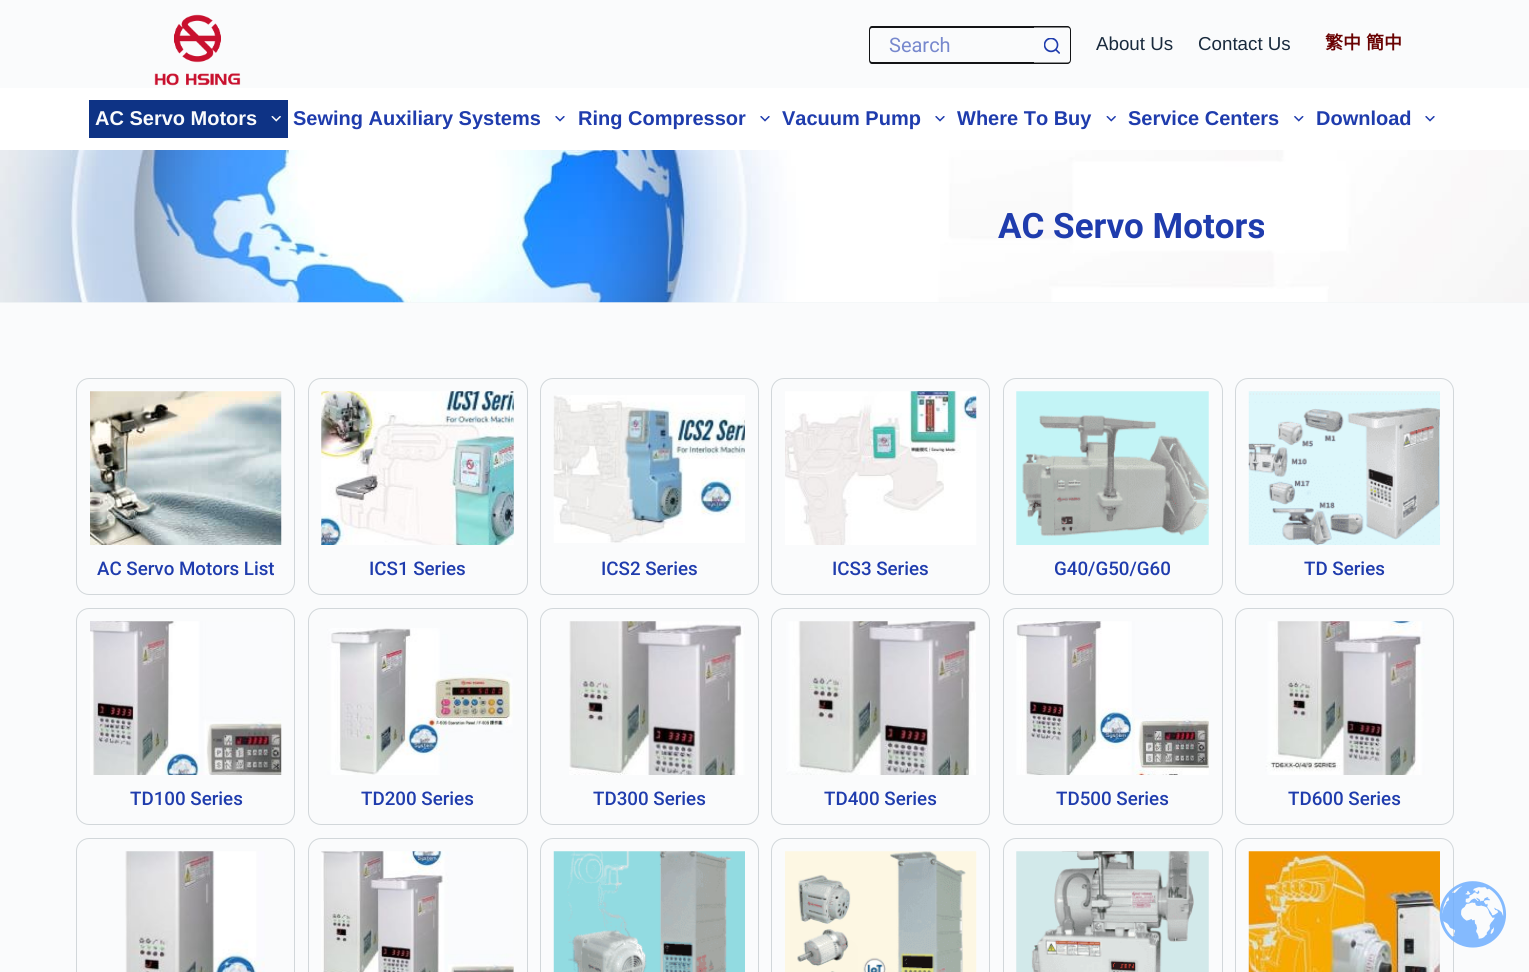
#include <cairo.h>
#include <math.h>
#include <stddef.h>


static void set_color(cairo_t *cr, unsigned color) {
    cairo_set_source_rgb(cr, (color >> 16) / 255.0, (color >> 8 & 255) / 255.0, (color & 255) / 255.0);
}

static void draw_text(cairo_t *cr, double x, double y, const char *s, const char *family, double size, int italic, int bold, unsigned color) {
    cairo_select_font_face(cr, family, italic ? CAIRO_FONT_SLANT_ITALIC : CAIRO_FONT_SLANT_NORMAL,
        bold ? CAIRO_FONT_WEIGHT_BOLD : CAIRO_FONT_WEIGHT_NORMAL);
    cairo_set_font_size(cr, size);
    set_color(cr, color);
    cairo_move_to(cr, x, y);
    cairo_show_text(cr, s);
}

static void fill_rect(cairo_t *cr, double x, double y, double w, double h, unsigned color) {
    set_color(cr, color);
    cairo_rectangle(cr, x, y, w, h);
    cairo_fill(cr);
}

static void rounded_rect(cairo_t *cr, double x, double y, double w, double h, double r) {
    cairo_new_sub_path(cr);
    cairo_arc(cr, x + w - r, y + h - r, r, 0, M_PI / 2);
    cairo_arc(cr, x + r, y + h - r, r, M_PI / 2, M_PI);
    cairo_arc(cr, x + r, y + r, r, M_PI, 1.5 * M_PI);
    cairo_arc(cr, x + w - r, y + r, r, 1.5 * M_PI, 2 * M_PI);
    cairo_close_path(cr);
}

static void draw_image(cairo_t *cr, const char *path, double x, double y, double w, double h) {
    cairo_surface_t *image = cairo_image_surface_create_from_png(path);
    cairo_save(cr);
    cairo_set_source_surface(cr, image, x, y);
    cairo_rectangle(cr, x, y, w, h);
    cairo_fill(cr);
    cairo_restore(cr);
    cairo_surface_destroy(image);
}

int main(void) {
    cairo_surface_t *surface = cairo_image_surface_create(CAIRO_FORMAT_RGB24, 1529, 972);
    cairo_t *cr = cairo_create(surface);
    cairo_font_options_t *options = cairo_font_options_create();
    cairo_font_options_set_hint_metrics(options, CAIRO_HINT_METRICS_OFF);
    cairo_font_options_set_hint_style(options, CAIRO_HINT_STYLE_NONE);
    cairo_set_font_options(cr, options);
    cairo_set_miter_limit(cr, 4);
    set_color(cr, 0xFAFBFC);
    cairo_paint(cr);
    draw_image(cr, "assets/img1.png", 154, 14, 87, 72);
    set_color(cr, 0x131416);
    cairo_set_fill_rule(cr, CAIRO_FILL_RULE_EVEN_ODD);
    cairo_new_path(cr);
    cairo_move_to(cr, 872, 26);
    cairo_line_to(cr, 1034, 26);
    cairo_line_to(cr, 1034, 64);
    cairo_line_to(cr, 872, 64);
    cairo_curve_to(cr, 870, 64, 869, 62, 869, 60);
    cairo_line_to(cr, 869, 30);
    cairo_curve_to(cr, 869, 28, 870, 26, 872, 26);
    cairo_close_path(cr);
    cairo_move_to(cr, 872, 28);
    cairo_line_to(cr, 1034, 28);
    cairo_line_to(cr, 1034, 62);
    cairo_line_to(cr, 872, 62);
    cairo_curve_to(cr, 871, 62, 870, 61, 870, 60);
    cairo_line_to(cr, 870, 30);
    cairo_curve_to(cr, 870, 29, 871, 28, 872, 28);
    cairo_close_path(cr);
    cairo_fill(cr);
    draw_text(cr, 889, 52, "Search", "Roboto", 20, 0, 0, 0x7788CD);
    set_color(cr, 0x131416);
    cairo_new_path(cr);
    cairo_move_to(cr, 1034, 26);
    cairo_line_to(cr, 1067.5, 26);
    cairo_curve_to(cr, 1069.5, 26, 1071, 28, 1071, 30);
    cairo_line_to(cr, 1071, 60);
    cairo_curve_to(cr, 1071, 62, 1069.5, 64, 1067.5, 64);
    cairo_line_to(cr, 1034, 64);
    cairo_close_path(cr);
    cairo_move_to(cr, 1034, 27.5);
    cairo_line_to(cr, 1067.5, 27.5);
    cairo_curve_to(cr, 1069, 27.5, 1070, 28.5, 1070, 30);
    cairo_line_to(cr, 1070, 60);
    cairo_curve_to(cr, 1070, 61.5, 1069, 62.5, 1067.5, 62.5);
    cairo_line_to(cr, 1034, 62.5);
    cairo_close_path(cr);
    cairo_fill(cr);
    draw_image(cr, "assets/img2.png", 1044, 38, 16, 16);
    draw_text(cr, 1096, 50, "About Us", "Liberation Sans", 18.75, 0, 0, 0x192A3D);
    draw_text(cr, 1198, 50, "Contact Us", "Liberation Sans", 18.75, 0, 0, 0x192A3D);
    draw_text(cr, 1325, 49, "繁中", "Noto Sans CJK TC", 18, 0, 1, 0x690202);
    draw_text(cr, 1366, 49, "簡中", "Noto Sans CJK SC", 18, 0, 1, 0x690202);
    fill_rect(cr, 0, 88, 1529, 62, 0xFFFFFF);
    fill_rect(cr, 89, 100, 199, 38, 0x0E3385);
    draw_text(cr, 95, 125, "AC Servo Motors", "Liberation Sans", 20, 0, 1, 0xFAFBFC);
    draw_image(cr, "assets/img3.png", 271, 116, 10, 6);
    draw_text(cr, 293, 125, "Sewing Auxiliary Systems", "Liberation Sans", 20, 0, 1, 0x1F3CAD);
    draw_image(cr, "assets/img4.png", 555, 116, 10, 6);
    draw_text(cr, 578, 125, "Ring Compressor", "Liberation Sans", 20, 0, 1, 0x1F3CAD);
    draw_image(cr, "assets/img4.png", 760, 116, 10, 6);
    draw_text(cr, 782, 125, "Vacuum Pump", "Liberation Sans", 20, 0, 1, 0x1F3CAD);
    draw_image(cr, "assets/img4.png", 935, 116, 10, 6);
    draw_text(cr, 957, 125, "Where To Buy", "Liberation Sans", 20, 0, 1, 0x1F3CAD);
    draw_image(cr, "assets/img5.png", 1106, 116, 10, 6);
    draw_text(cr, 1128, 125, "Service Centers", "Liberation Sans", 20, 0, 1, 0x1F3CAD);
    draw_image(cr, "assets/img6.png", 1294, 116, 10, 6);
    draw_text(cr, 1316, 125, "Download", "Liberation Sans", 20, 0, 1, 0x1F3CAD);
    draw_image(cr, "assets/img4.png", 1425, 116, 10, 6);
    fill_rect(cr, 0, 302, 1529, 1, 0xF2F5F7);
    draw_image(cr, "assets/img7.png", 0, 150, 1529, 153);
    draw_text(cr, 998, 238, "AC Servo Motors", "Roboto", 35, 0, 1, 0x1F3CAD);
    rounded_rect(cr, 76.5, 378.5, 218, 216, 12.5);
    set_color(cr, 0xD2D7DA);
    cairo_set_line_width(cr, 1);
    cairo_stroke(cr);
    draw_image(cr, "assets/img8.png", 90, 391, 192, 154);
    draw_text(cr, 97, 575, "AC Servo Motors List", "Roboto Medium", 18.75, 0, 0, 0x1F3CAD);
    rounded_rect(cr, 308.5, 378.5, 219, 216, 12.5);
    set_color(cr, 0xD2D7DA);
    cairo_stroke(cr);
    draw_image(cr, "assets/img9.png", 321, 391, 193, 154);
    draw_text(cr, 369, 575, "ICS1 Series", "Roboto Medium", 18.75, 0, 0, 0x1F3CAD);
    rounded_rect(cr, 540.5, 378.5, 218, 216, 12.5);
    set_color(cr, 0xD2D7DA);
    cairo_stroke(cr);
    draw_image(cr, "assets/img10.png", 553, 395, 192, 148);
    draw_text(cr, 601, 575, "ICS2 Series", "Roboto Medium", 18.75, 0, 0, 0x1F3CAD);
    rounded_rect(cr, 771.5, 378.5, 218, 216, 12.5);
    set_color(cr, 0xD2D7DA);
    cairo_stroke(cr);
    draw_image(cr, "assets/img11.png", 785, 391, 192, 154);
    draw_text(cr, 832, 575, "ICS3 Series", "Roboto Medium", 18.75, 0, 0, 0x1F3CAD);
    rounded_rect(cr, 1003.5, 378.5, 219, 216, 12.5);
    set_color(cr, 0xD2D7DA);
    cairo_stroke(cr);
    draw_image(cr, "assets/img12.png", 1016, 391, 193, 154);
    draw_text(cr, 1054, 575, "G40/G50/G60", "Roboto Medium", 18.75, 0, 0, 0x1F3CAD);
    rounded_rect(cr, 1235.5, 378.5, 218, 216, 12.5);
    set_color(cr, 0xD2D7DA);
    cairo_stroke(cr);
    draw_image(cr, "assets/img13.png", 1248, 391, 192, 154);
    draw_text(cr, 1304, 575, "TD Series", "Roboto Medium", 18.75, 0, 0, 0x1F3CAD);
    rounded_rect(cr, 76.5, 608.5, 218, 216, 12.5);
    set_color(cr, 0xD2D7DA);
    cairo_stroke(cr);
    draw_image(cr, "assets/img14.png", 90, 621, 192, 154);
    draw_text(cr, 130, 805, "TD100 Series", "Roboto Medium", 18.75, 0, 0, 0x1F3CAD);
    rounded_rect(cr, 308.5, 608.5, 219, 216, 12.5);
    set_color(cr, 0xD2D7DA);
    cairo_stroke(cr);
    draw_image(cr, "assets/img15.png", 327, 628, 186, 147);
    draw_text(cr, 361, 805, "TD200 Series", "Roboto Medium", 18.75, 0, 0, 0x1F3CAD);
    rounded_rect(cr, 540.5, 608.5, 218, 216, 12.5);
    set_color(cr, 0xD2D7DA);
    cairo_stroke(cr);
    draw_image(cr, "assets/img16.png", 569, 621, 176, 154);
    draw_text(cr, 593, 805, "TD300 Series", "Roboto Medium", 18.75, 0, 0, 0x1F3CAD);
    rounded_rect(cr, 771.5, 608.5, 218, 216, 12.5);
    set_color(cr, 0xD2D7DA);
    cairo_stroke(cr);
    draw_image(cr, "assets/img17.png", 786, 621, 190, 154);
    draw_text(cr, 824, 805, "TD400 Series", "Roboto Medium", 18.75, 0, 0, 0x1F3CAD);
    rounded_rect(cr, 1003.5, 608.5, 219, 216, 12.5);
    set_color(cr, 0xD2D7DA);
    cairo_stroke(cr);
    draw_image(cr, "assets/img18.png", 1016, 621, 193, 154);
    draw_text(cr, 1056, 805, "TD500 Series", "Roboto Medium", 18.75, 0, 0, 0x1F3CAD);
    rounded_rect(cr, 1235.5, 608.5, 218, 216, 12.5);
    set_color(cr, 0xD2D7DA);
    cairo_stroke(cr);
    draw_image(cr, "assets/img19.png", 1265, 621, 160, 154);
    draw_text(cr, 1288, 805, "TD600 Series", "Roboto Medium", 18.75, 0, 0, 0x1F3CAD);
    rounded_rect(cr, 76.5, 838.5, 218, 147, 12.5);
    set_color(cr, 0xD2D7DA);
    cairo_stroke(cr);
    draw_image(cr, "assets/img20.png", 125, 851, 140, 121);
    rounded_rect(cr, 308.5, 838.5, 219, 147, 12.5);
    cairo_stroke(cr);
    draw_image(cr, "assets/img21.png", 321, 851, 193, 121);
    rounded_rect(cr, 540.5, 838.5, 218, 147, 12.5);
    cairo_stroke(cr);
    draw_image(cr, "assets/img22.png", 553, 851, 192, 121);
    rounded_rect(cr, 771.5, 838.5, 218, 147, 12.5);
    cairo_stroke(cr);
    draw_image(cr, "assets/img23.png", 785, 851, 192, 121);
    rounded_rect(cr, 1003.5, 838.5, 219, 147, 12.5);
    cairo_stroke(cr);
    draw_image(cr, "assets/img24.png", 1016, 851, 193, 121);
    rounded_rect(cr, 1235.5, 838.5, 218, 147, 12.5);
    cairo_stroke(cr);
    draw_image(cr, "assets/img25.png", 1248, 851, 192, 121);
    draw_image(cr, "assets/img26.png", 1439, 881, 68, 67);
    cairo_surface_write_to_png(surface, "output.png");
    cairo_font_options_destroy(options);
    cairo_destroy(cr);
    cairo_surface_destroy(surface);
    return 0;
}
